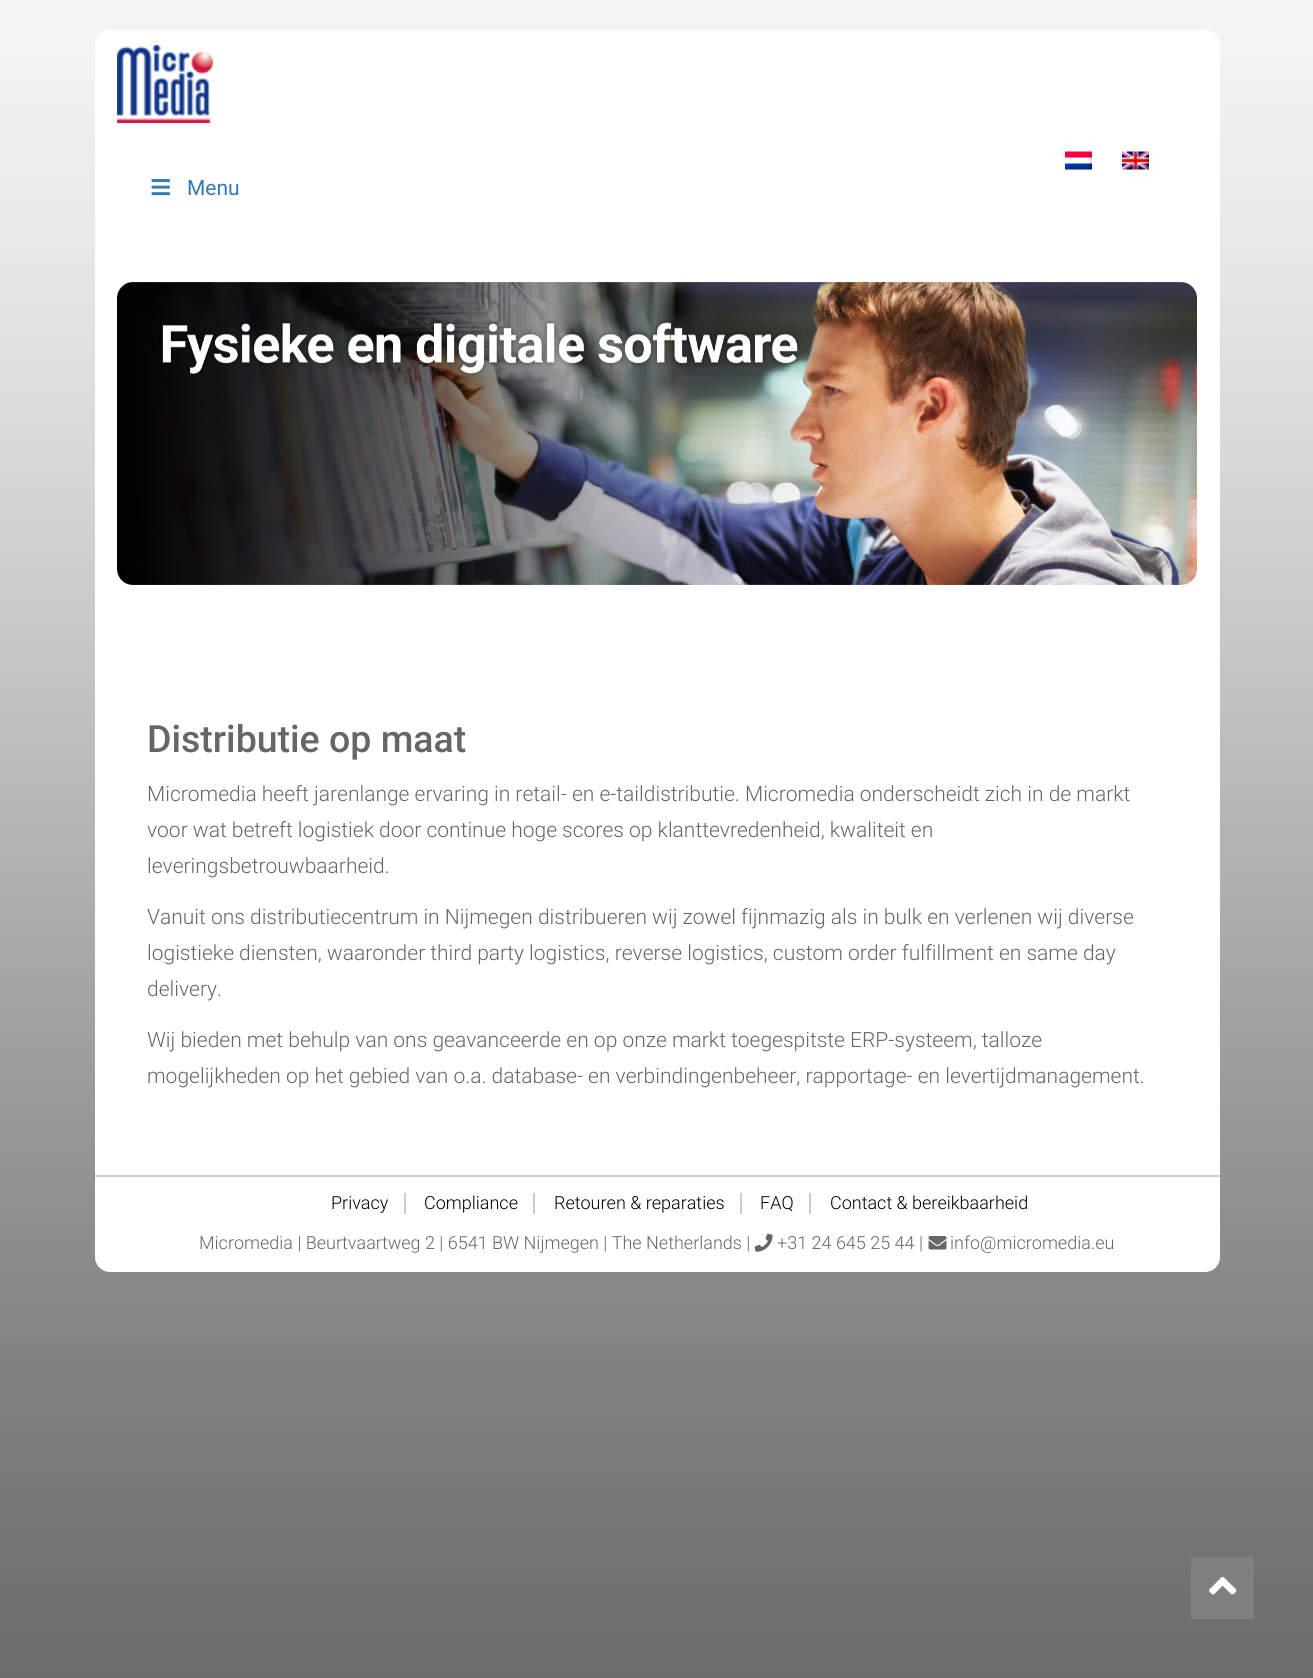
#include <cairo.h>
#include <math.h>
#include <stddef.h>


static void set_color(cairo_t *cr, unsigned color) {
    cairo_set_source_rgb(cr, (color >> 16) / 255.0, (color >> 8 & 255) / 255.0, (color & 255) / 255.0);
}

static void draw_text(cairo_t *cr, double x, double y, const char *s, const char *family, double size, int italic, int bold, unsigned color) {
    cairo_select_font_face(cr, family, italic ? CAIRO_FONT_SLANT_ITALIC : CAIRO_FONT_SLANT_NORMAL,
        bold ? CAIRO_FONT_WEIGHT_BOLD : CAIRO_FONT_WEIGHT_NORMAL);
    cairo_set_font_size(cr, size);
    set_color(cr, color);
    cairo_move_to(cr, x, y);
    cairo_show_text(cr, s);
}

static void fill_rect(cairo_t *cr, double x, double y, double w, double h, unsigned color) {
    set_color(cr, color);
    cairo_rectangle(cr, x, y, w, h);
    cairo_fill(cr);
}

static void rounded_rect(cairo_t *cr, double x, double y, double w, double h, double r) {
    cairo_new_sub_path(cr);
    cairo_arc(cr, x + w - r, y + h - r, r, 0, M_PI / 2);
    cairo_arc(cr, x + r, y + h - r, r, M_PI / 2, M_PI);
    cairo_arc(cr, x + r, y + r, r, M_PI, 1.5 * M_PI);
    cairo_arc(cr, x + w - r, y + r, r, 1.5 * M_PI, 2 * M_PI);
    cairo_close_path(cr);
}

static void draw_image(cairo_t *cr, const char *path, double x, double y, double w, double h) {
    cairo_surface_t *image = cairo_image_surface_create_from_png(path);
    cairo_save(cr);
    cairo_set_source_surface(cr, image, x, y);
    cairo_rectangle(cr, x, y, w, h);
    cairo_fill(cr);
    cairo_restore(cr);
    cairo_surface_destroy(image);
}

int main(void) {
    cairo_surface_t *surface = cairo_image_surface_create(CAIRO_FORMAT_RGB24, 1313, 1678);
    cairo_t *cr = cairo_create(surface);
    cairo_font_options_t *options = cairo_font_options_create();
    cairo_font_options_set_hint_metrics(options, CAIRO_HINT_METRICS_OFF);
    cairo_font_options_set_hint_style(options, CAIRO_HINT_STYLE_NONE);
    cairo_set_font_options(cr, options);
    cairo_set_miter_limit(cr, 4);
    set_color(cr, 0xFFFFFF);
    cairo_paint(cr);
    draw_image(cr, "assets/img1.png", 0, 0, 1313, 1678);
    set_color(cr, 0xFFFFFF);
    rounded_rect(cr, 95, 30, 1125, 1242, 15);
    cairo_fill(cr);
    draw_image(cr, "assets/img2.png", 117, 45, 96, 78);
    draw_image(cr, "assets/img3.png", 1065, 151, 27, 19);
    draw_image(cr, "assets/img4.png", 1122, 151, 27, 19);
    draw_image(cr, "assets/img5.png", 151, 179, 19, 17);
    draw_text(cr, 187, 195, "Menu", "Roboto", 21, 0, 0, 0x337AB7);
    draw_image(cr, "assets/img6.png", 117, 282, 1080, 303);
    draw_text(cr, 147, 752, "Distributie op maat", "Roboto Medium", 37.5, 0, 0, 0x666666);
    draw_text(cr, 147, 801, "Micromedia heeft jarenlange ervaring in retail- en e-taildistributie. Micromedia onderscheidt zich in de markt", "Roboto Light", 21, 0, 0, 0x666666);
    draw_text(cr, 147, 837, "voor wat betreft logistiek door continue hoge scores op klanttevredenheid, kwaliteit en", "Roboto Light", 21, 0, 0, 0x666666);
    draw_text(cr, 147, 873, "leveringsbetrouwbaarheid.", "Roboto Light", 21, 0, 0, 0x666666);
    draw_text(cr, 147, 924, "Vanuit ons distributiecentrum in Nijmegen distribueren wij zowel fijnmazig als in bulk en verlenen wij diverse", "Roboto Light", 21, 0, 0, 0x666666);
    draw_text(cr, 147, 960, "logistieke diensten, waaronder third party logistics, reverse logistics, custom order fulfillment en same day", "Roboto Light", 21, 0, 0, 0x666666);
    draw_text(cr, 147, 996, "delivery.", "Roboto Light", 21, 0, 0, 0x666666);
    draw_text(cr, 147, 1047, "Wij bieden met behulp van ons geavanceerde en op onze markt toegespitste ERP-systeem, talloze", "Roboto Light", 21, 0, 0, 0x666666);
    draw_text(cr, 147, 1083, "mogelijkheden op het gebied van o.a. database- en verbindingenbeheer, rapportage- en levertijdmanagement.", "Roboto Light", 21, 0, 0, 0x666666);
    fill_rect(cr, 95, 1175, 1125, 2, 0xCECECE);
    draw_text(cr, 331, 1209, "Privacy", "Roboto Light", 18, 0, 0, 0x000000);
    fill_rect(cr, 404, 1193, 2, 21, 0xCCCCCC);
    draw_text(cr, 424, 1209, "Compliance", "Roboto Light", 18, 0, 0, 0x000000);
    fill_rect(cr, 533, 1193, 2, 21, 0xCCCCCC);
    draw_text(cr, 554, 1209, "Retouren & reparaties", "Roboto Light", 18, 0, 0, 0x000000);
    fill_rect(cr, 740, 1193, 2, 21, 0xCCCCCC);
    draw_text(cr, 760, 1209, "FAQ", "Roboto Light", 18, 0, 0, 0x000000);
    fill_rect(cr, 809, 1193, 2, 21, 0xCCCCCC);
    draw_text(cr, 830, 1209, "Contact & bereikbaarheid", "Roboto Light", 18, 0, 0, 0x000000);
    draw_text(cr, 199, 1249, "Micromedia | Beurtvaartweg 2 | 6541 BW Nijmegen | The Netherlands |", "Roboto Light", 18, 0, 0, 0x666666);
    draw_image(cr, "assets/img7.png", 754, 1233, 19, 19);
    draw_text(cr, 777, 1249, "+31 24 645 25 44 |", "Roboto Light", 18, 0, 0, 0x666666);
    draw_image(cr, "assets/img8.png", 928, 1236, 19, 14);
    draw_text(cr, 950, 1249, "info@micromedia.eu", "Roboto Light", 18, 0, 0, 0x666666);
    fill_rect(cr, 1191, 1557, 63, 62, 0x808080);
    draw_image(cr, "assets/img9.png", 1209, 1577, 28, 18);
    cairo_surface_write_to_png(surface, "output.png");
    cairo_font_options_destroy(options);
    cairo_destroy(cr);
    cairo_surface_destroy(surface);
    return 0;
}
